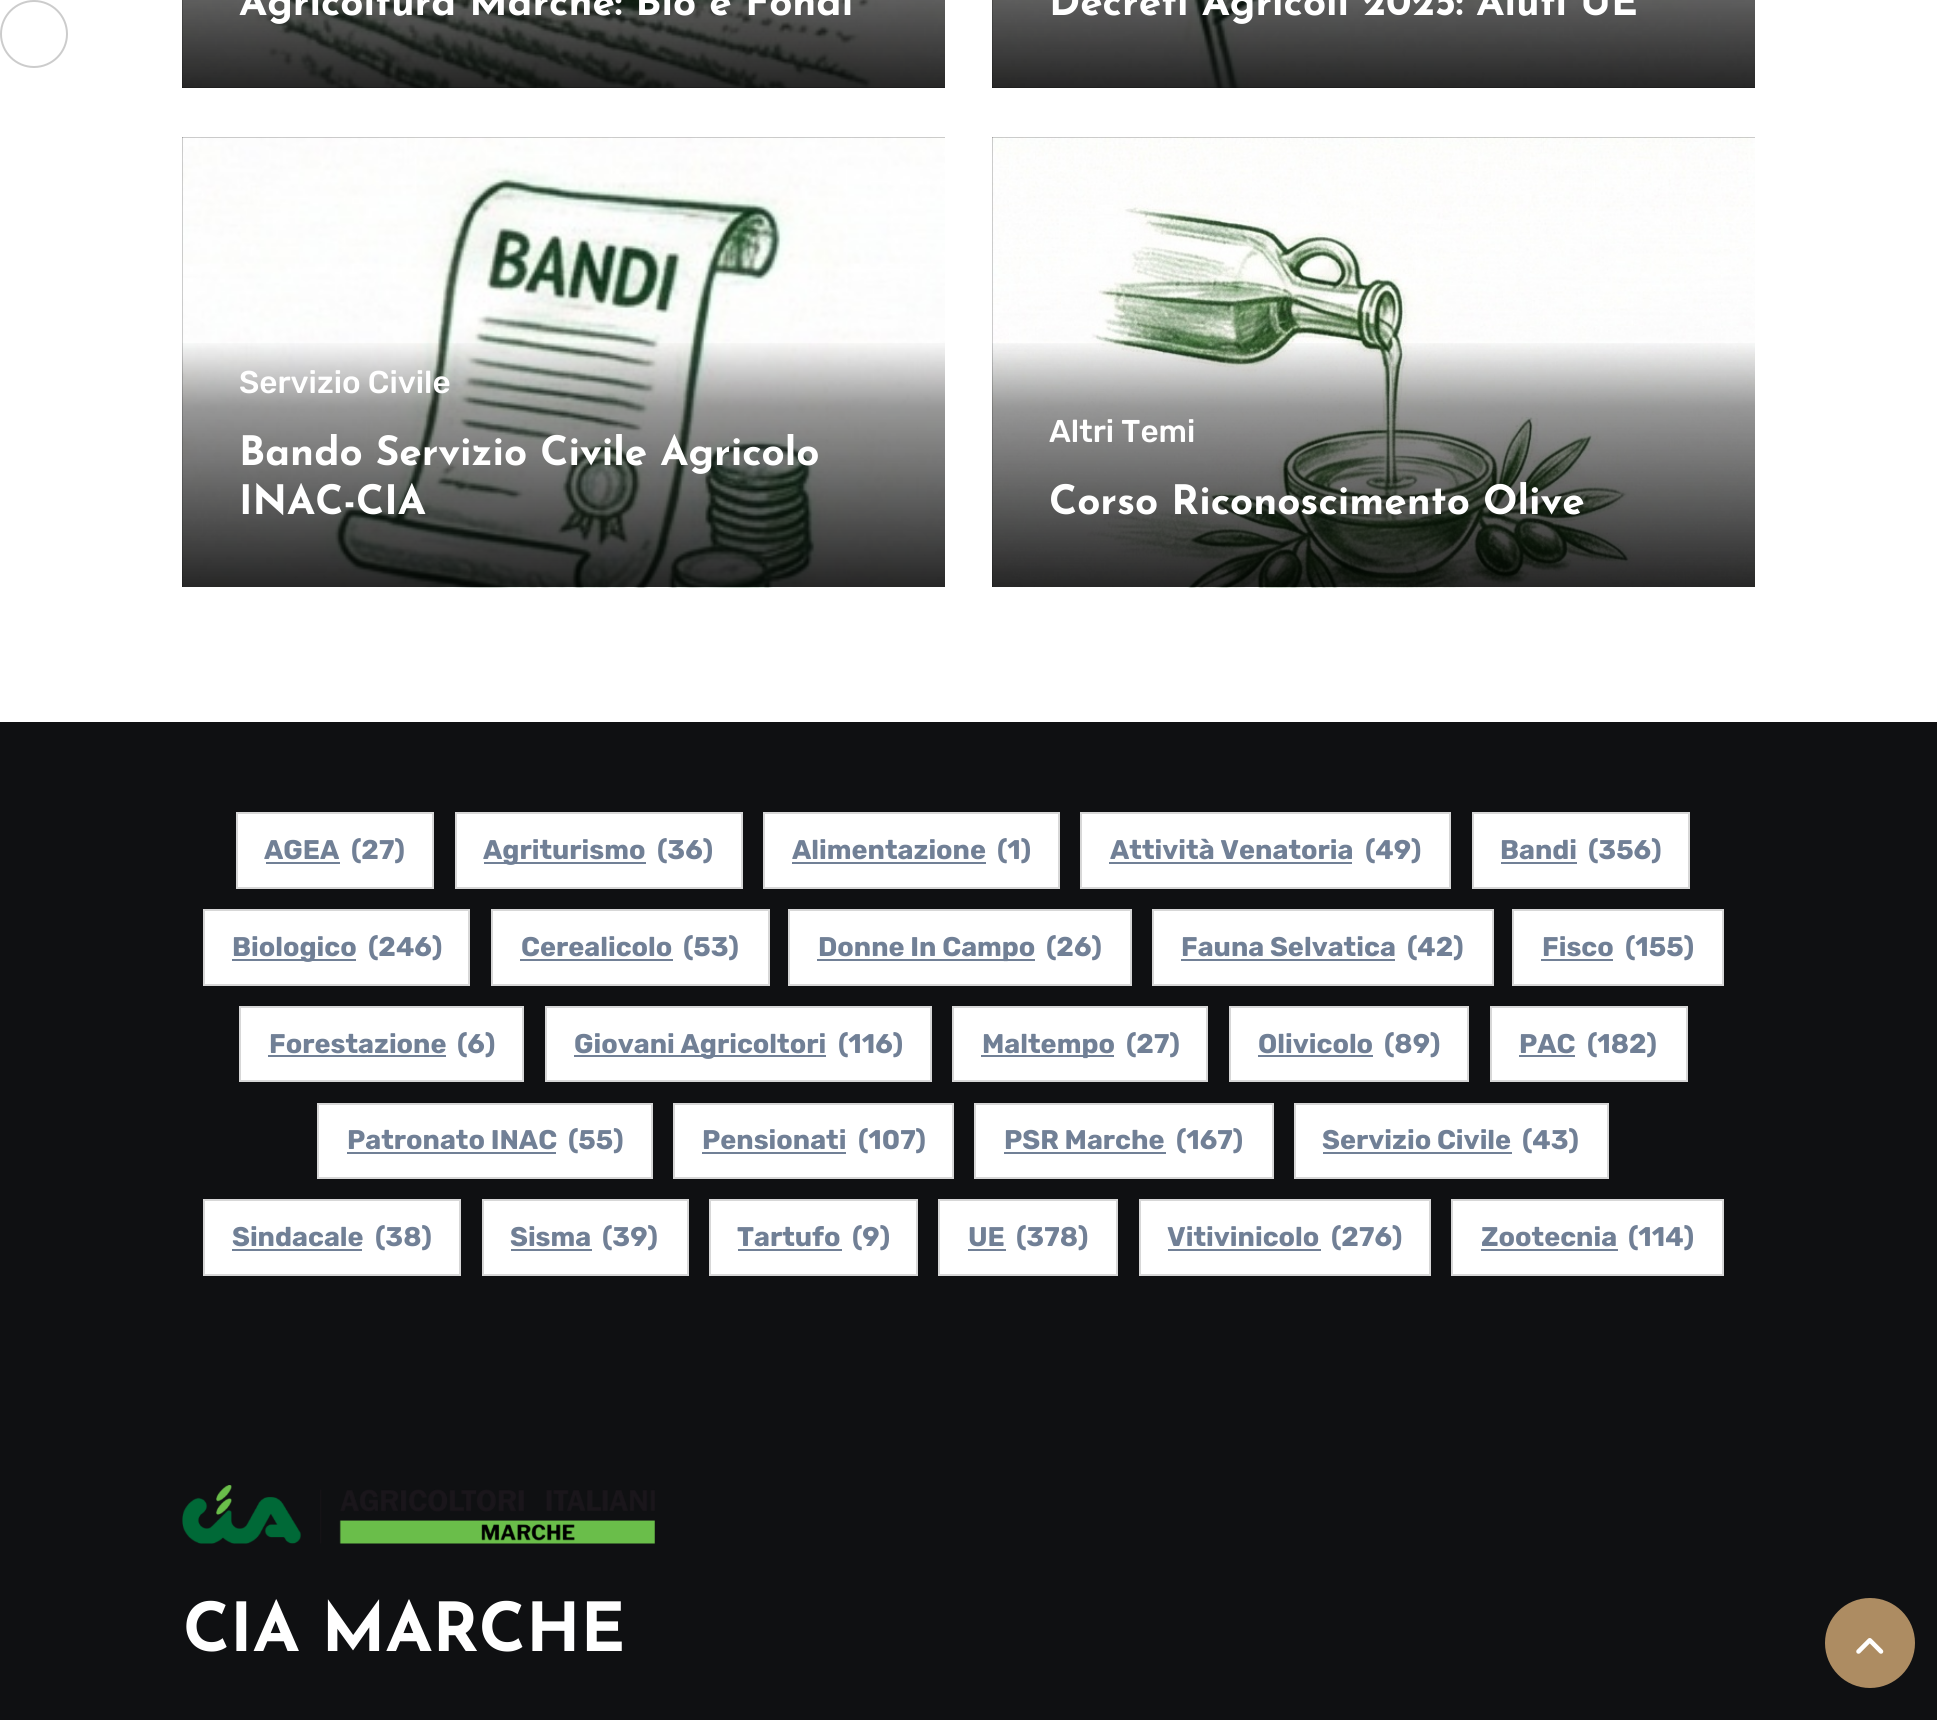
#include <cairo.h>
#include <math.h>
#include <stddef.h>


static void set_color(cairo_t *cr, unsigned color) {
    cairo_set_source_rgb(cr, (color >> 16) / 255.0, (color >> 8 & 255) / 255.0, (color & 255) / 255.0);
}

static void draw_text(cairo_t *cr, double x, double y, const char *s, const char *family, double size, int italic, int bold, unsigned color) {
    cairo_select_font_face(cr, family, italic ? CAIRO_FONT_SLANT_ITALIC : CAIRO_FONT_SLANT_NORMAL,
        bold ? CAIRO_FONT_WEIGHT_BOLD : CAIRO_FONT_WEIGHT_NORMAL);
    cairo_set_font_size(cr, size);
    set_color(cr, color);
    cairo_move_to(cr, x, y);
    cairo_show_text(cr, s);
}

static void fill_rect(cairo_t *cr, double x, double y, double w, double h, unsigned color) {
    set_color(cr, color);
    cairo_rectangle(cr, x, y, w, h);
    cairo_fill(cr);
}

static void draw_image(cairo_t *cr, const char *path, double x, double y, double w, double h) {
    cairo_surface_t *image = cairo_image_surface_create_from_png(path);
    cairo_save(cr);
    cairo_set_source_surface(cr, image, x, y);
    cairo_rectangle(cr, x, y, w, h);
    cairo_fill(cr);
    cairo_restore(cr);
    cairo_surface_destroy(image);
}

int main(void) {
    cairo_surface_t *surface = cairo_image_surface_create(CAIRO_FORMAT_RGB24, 1937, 1720);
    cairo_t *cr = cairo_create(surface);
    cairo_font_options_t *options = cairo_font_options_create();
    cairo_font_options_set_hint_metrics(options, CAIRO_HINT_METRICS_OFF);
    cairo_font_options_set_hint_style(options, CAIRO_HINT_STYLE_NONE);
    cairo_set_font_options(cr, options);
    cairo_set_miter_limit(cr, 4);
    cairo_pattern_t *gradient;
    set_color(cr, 0xFFFFFF);
    cairo_paint(cr);
    cairo_arc(cr, 34, 34, 33, 0, 2 * M_PI);
    set_color(cr, 0xCCCCCC);
    cairo_stroke(cr);
    fill_rect(cr, 182, 0, 763, 88, 0x333333);
    draw_image(cr, "assets/img1.png", 182, 0, 763, 88);
    gradient = cairo_pattern_create_linear(564, -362, 564, 88);
    cairo_pattern_add_color_stop_rgba(gradient, 0, 0, 0, 0, 0);
    cairo_pattern_add_color_stop_rgba(gradient, 0.45, 0, 0, 0, 0);
    cairo_pattern_add_color_stop_rgba(gradient, 0.6, 0, 0, 0, 0.4);
    cairo_pattern_add_color_stop_rgba(gradient, 1, 0, 0, 0, 0.85);
    cairo_set_source(cr, gradient);
    cairo_pattern_destroy(gradient);
    cairo_rectangle(cr, 182, 0, 763, 88);
    cairo_fill(cr);
    draw_text(cr, 239, 15, "Agricoltura Marche: Bio e Fondi", "Josefin Sans", 40.5, 0, 1, 0xFFFFFF);
    fill_rect(cr, 992, 0, 763, 88, 0x333333);
    draw_image(cr, "assets/img2.png", 992, 0, 763, 88);
    gradient = cairo_pattern_create_linear(1374, -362, 1374, 88);
    cairo_pattern_add_color_stop_rgba(gradient, 0, 0, 0, 0, 0);
    cairo_pattern_add_color_stop_rgba(gradient, 0.45, 0, 0, 0, 0);
    cairo_pattern_add_color_stop_rgba(gradient, 0.6, 0, 0, 0, 0.4);
    cairo_pattern_add_color_stop_rgba(gradient, 1, 0, 0, 0, 0.85);
    cairo_set_source(cr, gradient);
    cairo_pattern_destroy(gradient);
    cairo_rectangle(cr, 992, 0, 763, 88);
    cairo_fill(cr);
    draw_text(cr, 1049, 15, "Decreti Agricoli 2025: Aiuti UE", "Josefin Sans", 40.5, 0, 1, 0xFFFFFF);
    fill_rect(cr, 182, 137, 763, 450, 0x333333);
    draw_image(cr, "assets/img3.png", 182, 137, 763, 451);
    gradient = cairo_pattern_create_linear(564, 137, 564, 587);
    cairo_pattern_add_color_stop_rgba(gradient, 0, 0, 0, 0, 0);
    cairo_pattern_add_color_stop_rgba(gradient, 0.45, 0, 0, 0, 0);
    cairo_pattern_add_color_stop_rgba(gradient, 0.6, 0, 0, 0, 0.4);
    cairo_pattern_add_color_stop_rgba(gradient, 1, 0, 0, 0, 0.85);
    cairo_set_source(cr, gradient);
    cairo_pattern_destroy(gradient);
    cairo_rectangle(cr, 182, 343, 763, 244);
    cairo_fill(cr);
    draw_text(cr, 239, 393, "Servizio Civile", "Rubik Medium", 31.5, 0, 0, 0xFFFFFF);
    cairo_save(cr);
    cairo_rectangle(cr, 239, 434, 650, 97);
    cairo_clip(cr);
    draw_text(cr, 239, 465, "Bando Servizio Civile Agricolo", "Josefin Sans", 40.5, 0, 1, 0xFFFFFF);
    cairo_restore(cr);
    draw_text(cr, 239, 514, "INAC-CIA", "Josefin Sans", 40.5, 0, 1, 0xFFFFFF);
    fill_rect(cr, 992, 137, 763, 450, 0x333333);
    draw_image(cr, "assets/img4.png", 992, 137, 763, 451);
    gradient = cairo_pattern_create_linear(1374, 137, 1374, 587);
    cairo_pattern_add_color_stop_rgba(gradient, 0, 0, 0, 0, 0);
    cairo_pattern_add_color_stop_rgba(gradient, 0.45, 0, 0, 0, 0);
    cairo_pattern_add_color_stop_rgba(gradient, 0.6, 0, 0, 0, 0.4);
    cairo_pattern_add_color_stop_rgba(gradient, 1, 0, 0, 0, 0.85);
    cairo_set_source(cr, gradient);
    cairo_pattern_destroy(gradient);
    cairo_rectangle(cr, 992, 343, 763, 244);
    cairo_fill(cr);
    draw_text(cr, 1049, 442, "Altri Temi", "Rubik Medium", 31.5, 0, 0, 0xFFFFFF);
    draw_text(cr, 1049, 514, "Corso Riconoscimento Olive", "Josefin Sans", 40.5, 0, 1, 0xFFFFFF);
    fill_rect(cr, 0, 722, 1937, 998, 0x0F1012);
    set_color(cr, 0xFFFFFF);
    cairo_rectangle(cr, 237, 813, 196, 75);
    cairo_fill_preserve(cr);
    set_color(cr, 0xD7D7D7);
    cairo_stroke(cr);
    draw_text(cr, 264, 859, "AGEA", "Rubik", 27, 0, 1, 0x718096);
    fill_rect(cr, 266, 862, 74, 2, 0x718096);
    draw_text(cr, 351, 859, "(27)", "Rubik", 27, 0, 1, 0x718096);
    set_color(cr, 0xFFFFFF);
    cairo_rectangle(cr, 456, 813, 286, 75);
    cairo_fill_preserve(cr);
    set_color(cr, 0xD7D7D7);
    cairo_stroke(cr);
    fill_rect(cr, 484, 862, 162, 2, 0x718096);
    draw_text(cr, 483, 859, "Agriturismo", "Rubik", 27, 0, 1, 0x718096);
    draw_text(cr, 657, 859, "(36)", "Rubik", 27, 0, 1, 0x718096);
    set_color(cr, 0xFFFFFF);
    cairo_rectangle(cr, 764, 813, 295, 75);
    cairo_fill_preserve(cr);
    set_color(cr, 0xD7D7D7);
    cairo_stroke(cr);
    draw_text(cr, 792, 859, "Alimentazione", "Rubik", 27, 0, 1, 0x718096);
    fill_rect(cr, 792, 862, 194, 2, 0x718096);
    draw_text(cr, 997, 859, "(1)", "Rubik", 27, 0, 1, 0x718096);
    set_color(cr, 0xFFFFFF);
    cairo_rectangle(cr, 1081, 813, 369, 75);
    cairo_fill_preserve(cr);
    set_color(cr, 0xD7D7D7);
    cairo_stroke(cr);
    draw_text(cr, 1110, 859, "Attività Venatoria", "Rubik", 27, 0, 1, 0x718096);
    fill_rect(cr, 1109, 862, 243, 2, 0x718096);
    draw_text(cr, 1365, 859, "(49)", "Rubik", 27, 0, 1, 0x718096);
    set_color(cr, 0xFFFFFF);
    cairo_rectangle(cr, 1473, 813, 216, 75);
    cairo_fill_preserve(cr);
    set_color(cr, 0xD7D7D7);
    cairo_stroke(cr);
    draw_text(cr, 1500, 859, "Bandi", "Rubik", 27, 0, 1, 0x718096);
    fill_rect(cr, 1501, 862, 76, 2, 0x718096);
    draw_text(cr, 1588, 859, "(356)", "Rubik", 27, 0, 1, 0x718096);
    set_color(cr, 0xFFFFFF);
    cairo_rectangle(cr, 204, 910, 265, 75);
    cairo_fill_preserve(cr);
    set_color(cr, 0xD7D7D7);
    cairo_stroke(cr);
    fill_rect(cr, 232, 959, 124, 2, 0x718096);
    draw_text(cr, 232, 956, "Biologico", "Rubik", 27, 0, 1, 0x718096);
    draw_text(cr, 368, 956, "(246)", "Rubik", 27, 0, 1, 0x718096);
    set_color(cr, 0xFFFFFF);
    cairo_rectangle(cr, 492, 910, 277, 75);
    cairo_fill_preserve(cr);
    set_color(cr, 0xD7D7D7);
    cairo_stroke(cr);
    draw_text(cr, 521, 956, "Cerealicolo", "Rubik", 27, 0, 1, 0x718096);
    fill_rect(cr, 520, 959, 153, 2, 0x718096);
    draw_text(cr, 683, 956, "(53)", "Rubik", 27, 0, 1, 0x718096);
    set_color(cr, 0xFFFFFF);
    cairo_rectangle(cr, 789, 910, 342, 75);
    cairo_fill_preserve(cr);
    set_color(cr, 0xD7D7D7);
    cairo_stroke(cr);
    fill_rect(cr, 817, 959, 218, 2, 0x718096);
    draw_text(cr, 818, 956, "Donne In Campo", "Rubik", 27, 0, 1, 0x718096);
    draw_text(cr, 1046, 956, "(26)", "Rubik", 27, 0, 1, 0x718096);
    set_color(cr, 0xFFFFFF);
    cairo_rectangle(cr, 1153, 910, 340, 75);
    cairo_fill_preserve(cr);
    set_color(cr, 0xD7D7D7);
    cairo_stroke(cr);
    draw_text(cr, 1181, 956, "Fauna Selvatica", "Rubik", 27, 0, 1, 0x718096);
    fill_rect(cr, 1181, 959, 214, 2, 0x718096);
    draw_text(cr, 1407, 956, "(42)", "Rubik", 27, 0, 1, 0x718096);
    set_color(cr, 0xFFFFFF);
    cairo_rectangle(cr, 1513, 910, 210, 75);
    cairo_fill_preserve(cr);
    set_color(cr, 0xD7D7D7);
    cairo_stroke(cr);
    draw_text(cr, 1542, 956, "Fisco", "Rubik", 27, 0, 1, 0x718096);
    fill_rect(cr, 1541, 959, 72, 2, 0x718096);
    draw_text(cr, 1625, 956, "(155)", "Rubik", 27, 0, 1, 0x718096);
    set_color(cr, 0xFFFFFF);
    cairo_rectangle(cr, 240, 1007, 283, 74);
    cairo_fill_preserve(cr);
    set_color(cr, 0xD7D7D7);
    cairo_stroke(cr);
    draw_text(cr, 269, 1053, "Forestazione", "Rubik", 27, 0, 1, 0x718096);
    fill_rect(cr, 268, 1055, 178, 2, 0x718096);
    draw_text(cr, 457, 1053, "(6)", "Rubik", 27, 0, 1, 0x718096);
    set_color(cr, 0xFFFFFF);
    cairo_rectangle(cr, 546, 1007, 385, 74);
    cairo_fill_preserve(cr);
    set_color(cr, 0xD7D7D7);
    cairo_stroke(cr);
    fill_rect(cr, 574, 1055, 252, 2, 0x718096);
    draw_text(cr, 574, 1053, "Giovani Agricoltori", "Rubik", 27, 0, 1, 0x718096);
    draw_text(cr, 838, 1053, "(116)", "Rubik", 27, 0, 1, 0x718096);
    set_color(cr, 0xFFFFFF);
    cairo_rectangle(cr, 953, 1007, 254, 74);
    cairo_fill_preserve(cr);
    set_color(cr, 0xD7D7D7);
    cairo_stroke(cr);
    fill_rect(cr, 981, 1055, 133, 2, 0x718096);
    draw_text(cr, 982, 1053, "Maltempo", "Rubik", 27, 0, 1, 0x718096);
    draw_text(cr, 1126, 1053, "(27)", "Rubik", 27, 0, 1, 0x718096);
    set_color(cr, 0xFFFFFF);
    cairo_rectangle(cr, 1230, 1007, 238, 74);
    cairo_fill_preserve(cr);
    set_color(cr, 0xD7D7D7);
    cairo_stroke(cr);
    draw_text(cr, 1258, 1053, "Olivicolo", "Rubik", 27, 0, 1, 0x718096);
    fill_rect(cr, 1258, 1055, 115, 2, 0x718096);
    draw_text(cr, 1384, 1053, "(89)", "Rubik", 27, 0, 1, 0x718096);
    set_color(cr, 0xFFFFFF);
    cairo_rectangle(cr, 1491, 1007, 196, 74);
    cairo_fill_preserve(cr);
    set_color(cr, 0xD7D7D7);
    cairo_stroke(cr);
    draw_text(cr, 1519, 1053, "PAC", "Rubik", 27, 0, 1, 0x718096);
    fill_rect(cr, 1519, 1055, 56, 2, 0x718096);
    draw_text(cr, 1587, 1053, "(182)", "Rubik", 27, 0, 1, 0x718096);
    set_color(cr, 0xFFFFFF);
    cairo_rectangle(cr, 318, 1104, 334, 74);
    cairo_fill_preserve(cr);
    set_color(cr, 0xD7D7D7);
    cairo_stroke(cr);
    draw_text(cr, 347, 1149, "Patronato INAC", "Rubik", 27, 0, 1, 0x718096);
    fill_rect(cr, 347, 1152, 209, 2, 0x718096);
    draw_text(cr, 568, 1149, "(55)", "Rubik", 27, 0, 1, 0x718096);
    set_color(cr, 0xFFFFFF);
    cairo_rectangle(cr, 674, 1104, 279, 74);
    cairo_fill_preserve(cr);
    set_color(cr, 0xD7D7D7);
    cairo_stroke(cr);
    draw_text(cr, 702, 1149, "Pensionati", "Rubik", 27, 0, 1, 0x718096);
    fill_rect(cr, 702, 1152, 144, 2, 0x718096);
    draw_text(cr, 858, 1149, "(107)", "Rubik", 27, 0, 1, 0x718096);
    set_color(cr, 0xFFFFFF);
    cairo_rectangle(cr, 975, 1104, 298, 74);
    cairo_fill_preserve(cr);
    set_color(cr, 0xD7D7D7);
    cairo_stroke(cr);
    draw_text(cr, 1004, 1149, "PSR Marche", "Rubik", 27, 0, 1, 0x718096);
    fill_rect(cr, 1004, 1152, 162, 2, 0x718096);
    draw_text(cr, 1176, 1149, "(167)", "Rubik", 27, 0, 1, 0x718096);
    set_color(cr, 0xFFFFFF);
    cairo_rectangle(cr, 1295, 1104, 313, 74);
    cairo_fill_preserve(cr);
    set_color(cr, 0xD7D7D7);
    cairo_stroke(cr);
    draw_text(cr, 1322, 1149, "Servizio Civile", "Rubik", 27, 0, 1, 0x718096);
    fill_rect(cr, 1323, 1152, 189, 2, 0x718096);
    draw_text(cr, 1522, 1149, "(43)", "Rubik", 27, 0, 1, 0x718096);
    set_color(cr, 0xFFFFFF);
    cairo_rectangle(cr, 204, 1200, 256, 75);
    cairo_fill_preserve(cr);
    set_color(cr, 0xD7D7D7);
    cairo_stroke(cr);
    draw_text(cr, 232, 1246, "Sindacale", "Rubik", 27, 0, 1, 0x718096);
    fill_rect(cr, 232, 1249, 130, 2, 0x718096);
    draw_text(cr, 375, 1246, "(38)", "Rubik", 27, 0, 1, 0x718096);
    set_color(cr, 0xFFFFFF);
    cairo_rectangle(cr, 483, 1200, 205, 75);
    cairo_fill_preserve(cr);
    set_color(cr, 0xD7D7D7);
    cairo_stroke(cr);
    draw_text(cr, 510, 1246, "Sisma", "Rubik", 27, 0, 1, 0x718096);
    fill_rect(cr, 511, 1249, 81, 2, 0x718096);
    draw_text(cr, 602, 1246, "(39)", "Rubik", 27, 0, 1, 0x718096);
    set_color(cr, 0xFFFFFF);
    cairo_rectangle(cr, 710, 1200, 207, 75);
    cairo_fill_preserve(cr);
    set_color(cr, 0xD7D7D7);
    cairo_stroke(cr);
    draw_text(cr, 737, 1246, "Tartufo", "Rubik", 27, 0, 1, 0x718096);
    fill_rect(cr, 738, 1249, 104, 2, 0x718096);
    draw_text(cr, 852, 1246, "(9)", "Rubik", 27, 0, 1, 0x718096);
    set_color(cr, 0xFFFFFF);
    cairo_rectangle(cr, 939, 1200, 178, 75);
    cairo_fill_preserve(cr);
    set_color(cr, 0xD7D7D7);
    cairo_stroke(cr);
    draw_text(cr, 968, 1246, "UE", "Rubik", 27, 0, 1, 0x718096);
    fill_rect(cr, 968, 1249, 38, 2, 0x718096);
    draw_text(cr, 1016, 1246, "(378)", "Rubik", 27, 0, 1, 0x718096);
    set_color(cr, 0xFFFFFF);
    cairo_rectangle(cr, 1140, 1200, 290, 75);
    cairo_fill_preserve(cr);
    set_color(cr, 0xD7D7D7);
    cairo_stroke(cr);
    draw_text(cr, 1167, 1246, "Vitivinicolo", "Rubik", 27, 0, 1, 0x718096);
    fill_rect(cr, 1168, 1249, 153, 2, 0x718096);
    draw_text(cr, 1331, 1246, "(276)", "Rubik", 27, 0, 1, 0x718096);
    set_color(cr, 0xFFFFFF);
    cairo_rectangle(cr, 1452, 1200, 271, 75);
    cairo_fill_preserve(cr);
    set_color(cr, 0xD7D7D7);
    cairo_stroke(cr);
    draw_text(cr, 1481, 1246, "Zootecnia", "Rubik", 27, 0, 1, 0x718096);
    fill_rect(cr, 1481, 1249, 137, 2, 0x718096);
    draw_text(cr, 1628, 1246, "(114)", "Rubik", 27, 0, 1, 0x718096);
    draw_image(cr, "assets/img5.png", 182, 1485, 473, 59);
    draw_text(cr, 183, 1651, "CIA MARCHE", "Josefin Sans", 67.5, 0, 1, 0xFFFFFF);
    set_color(cr, 0xAD8C62);
    cairo_new_path(cr);
    cairo_arc(cr, 1870, 1643, 42.5, 0, 2 * M_PI);
    cairo_fill_preserve(cr);
    cairo_set_line_width(cr, 5);
    cairo_stroke(cr);
    draw_image(cr, "assets/img6.png", 1856, 1638, 28, 16);
    cairo_surface_write_to_png(surface, "output.png");
    cairo_font_options_destroy(options);
    cairo_destroy(cr);
    cairo_surface_destroy(surface);
    return 0;
}
